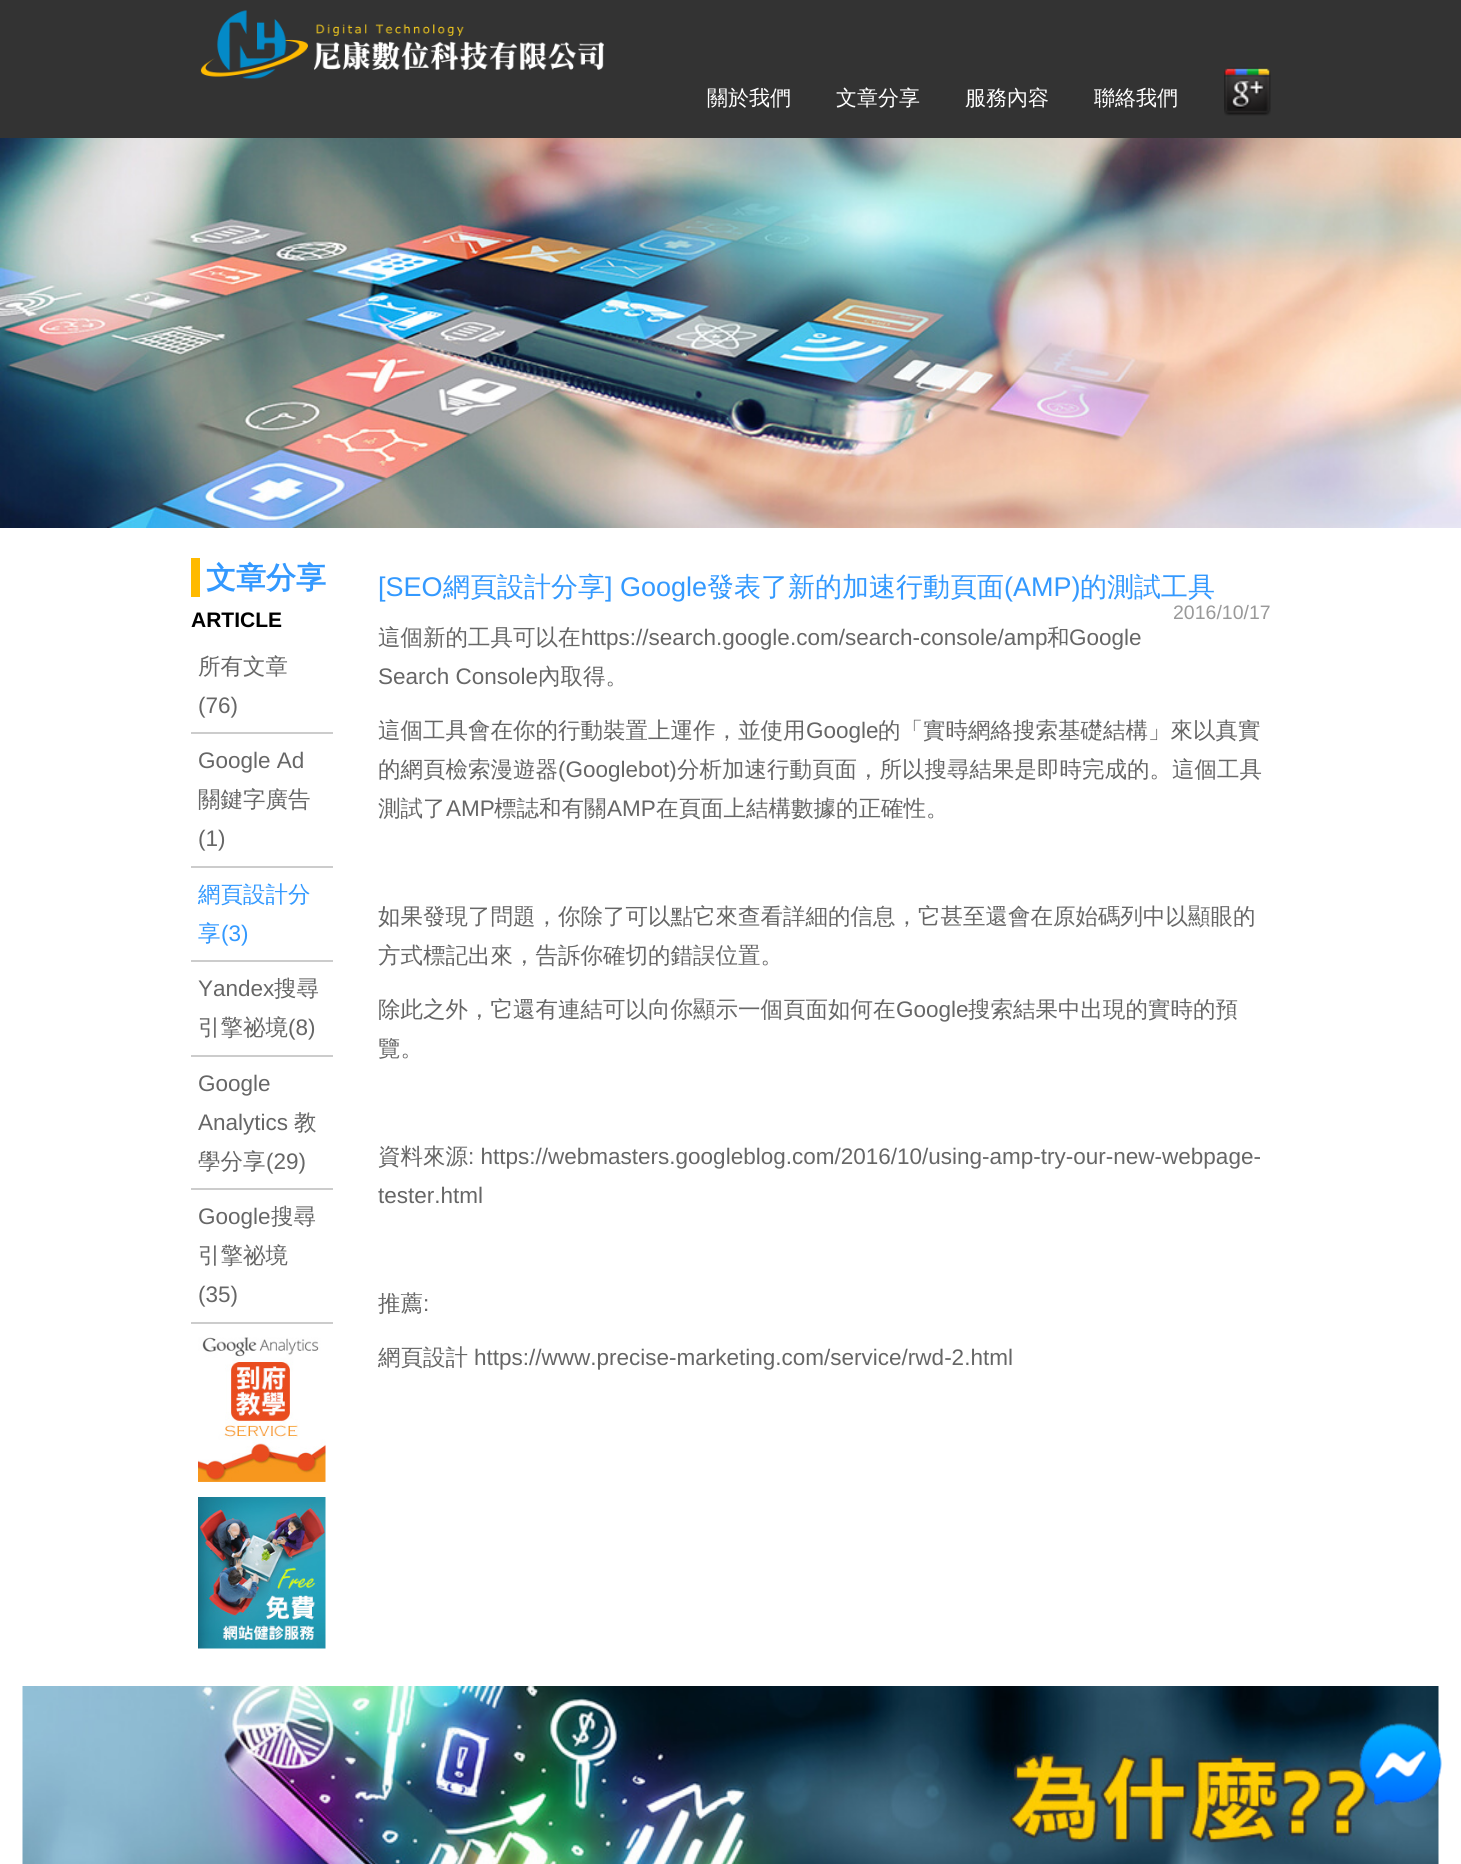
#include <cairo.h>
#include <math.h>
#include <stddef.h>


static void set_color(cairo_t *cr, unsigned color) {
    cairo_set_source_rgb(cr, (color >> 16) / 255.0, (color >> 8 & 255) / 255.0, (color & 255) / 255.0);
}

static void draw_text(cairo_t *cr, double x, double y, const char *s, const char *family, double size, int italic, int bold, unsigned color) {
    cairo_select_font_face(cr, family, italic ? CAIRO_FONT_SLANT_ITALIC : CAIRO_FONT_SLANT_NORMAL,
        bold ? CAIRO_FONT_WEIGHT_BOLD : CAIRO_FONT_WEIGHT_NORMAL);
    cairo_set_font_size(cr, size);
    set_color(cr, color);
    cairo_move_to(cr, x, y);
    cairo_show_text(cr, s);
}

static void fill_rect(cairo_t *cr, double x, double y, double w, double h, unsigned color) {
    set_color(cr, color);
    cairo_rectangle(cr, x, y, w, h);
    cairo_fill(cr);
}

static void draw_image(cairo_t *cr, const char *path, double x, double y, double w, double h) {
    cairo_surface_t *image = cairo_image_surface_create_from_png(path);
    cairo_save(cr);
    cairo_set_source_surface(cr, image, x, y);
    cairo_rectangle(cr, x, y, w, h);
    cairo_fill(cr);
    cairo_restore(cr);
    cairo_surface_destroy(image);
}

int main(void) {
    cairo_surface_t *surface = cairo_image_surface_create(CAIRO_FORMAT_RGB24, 1461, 1864);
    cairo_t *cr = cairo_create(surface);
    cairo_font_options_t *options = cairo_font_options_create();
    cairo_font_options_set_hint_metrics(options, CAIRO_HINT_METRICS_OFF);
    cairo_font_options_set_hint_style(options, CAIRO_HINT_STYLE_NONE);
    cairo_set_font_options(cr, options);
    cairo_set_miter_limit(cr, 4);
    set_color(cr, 0xFFFFFF);
    cairo_paint(cr);
    fill_rect(cr, 0, 0, 1461, 138, 0x333333);
    draw_image(cr, "assets/img1.png", 200, 10, 404, 69);
    draw_text(cr, 707, 105, "關於我們", "WenQuanYi Zen Hei Medium", 21, 0, 0, 0xFFFFFF);
    draw_text(cr, 836, 105, "文章分享", "WenQuanYi Zen Hei Medium", 21, 0, 0, 0xFFFFFF);
    draw_text(cr, 965, 105, "服務內容", "WenQuanYi Zen Hei Medium", 21, 0, 0, 0xFFFFFF);
    draw_text(cr, 1094, 105, "聯絡我們", "WenQuanYi Zen Hei Medium", 21, 0, 0, 0xFFFFFF);
    draw_image(cr, "assets/img2.png", 1224, 67, 47, 49);
    draw_image(cr, "assets/img3.png", 0, 138, 1461, 390);
    fill_rect(cr, 191, 558, 9, 39, 0xFFBA00);
    draw_text(cr, 206, 588, "文章分享", "WenQuanYi Zen Hei", 30, 0, 1, 0x3399FF);
    draw_text(cr, 191, 627, "ARTICLE", "Liberation Sans", 21, 0, 1, 0x000000);
    fill_rect(cr, 191, 732, 142, 2, 0xCCCCCC);
    draw_text(cr, 198, 674, "所有文章", "WenQuanYi Zen Hei Medium", 22.5, 0, 0, 0x666666);
    draw_text(cr, 198, 713, "(76)", "Liberation Sans", 22.5, 0, 0, 0x666666);
    fill_rect(cr, 191, 866, 142, 2, 0xCCCCCC);
    draw_text(cr, 198, 768, "Google Ad", "Liberation Sans", 22.5, 0, 0, 0x666666);
    draw_text(cr, 198, 807, "關鍵字廣告", "WenQuanYi Zen Hei Medium", 22.5, 0, 0, 0x666666);
    draw_text(cr, 198, 846, "(1)", "Liberation Sans", 22.5, 0, 0, 0x666666);
    fill_rect(cr, 191, 960, 142, 2, 0xCCCCCC);
    draw_text(cr, 198, 902, "網頁設計分", "WenQuanYi Zen Hei Medium", 22.5, 0, 0, 0x3399FF);
    draw_text(cr, 198, 941, "享", "WenQuanYi Zen Hei Medium", 22.5, 0, 0, 0x3399FF);
    draw_text(cr, 221, 941, "(3)", "Liberation Sans", 22.5, 0, 0, 0x3399FF);
    fill_rect(cr, 191, 1055, 142, 2, 0xCCCCCC);
    draw_text(cr, 198, 996, "Yandex", "Liberation Sans", 22.5, 0, 0, 0x666666);
    draw_text(cr, 274, 996, "搜尋", "WenQuanYi Zen Hei Medium", 22.5, 0, 0, 0x666666);
    draw_text(cr, 198, 1035, "引擎祕境", "WenQuanYi Zen Hei Medium", 22.5, 0, 0, 0x666666);
    draw_text(cr, 288, 1035, "(8)", "Liberation Sans", 22.5, 0, 0, 0x666666);
    fill_rect(cr, 191, 1188, 142, 2, 0xCCCCCC);
    draw_text(cr, 198, 1091, "Google", "Liberation Sans", 22.5, 0, 0, 0x666666);
    draw_text(cr, 198, 1130, "Analytics", "Liberation Sans", 22.5, 0, 0, 0x666666);
    draw_text(cr, 294, 1130, "教", "WenQuanYi Zen Hei Medium", 22.5, 0, 0, 0x666666);
    draw_text(cr, 198, 1169, "學分享", "WenQuanYi Zen Hei Medium", 22.5, 0, 0, 0x666666);
    draw_text(cr, 266, 1169, "(29)", "Liberation Sans", 22.5, 0, 0, 0x666666);
    fill_rect(cr, 191, 1322, 142, 2, 0xCCCCCC);
    draw_text(cr, 198, 1224, "Google", "Liberation Sans", 22.5, 0, 0, 0x666666);
    draw_text(cr, 271, 1224, "搜尋", "WenQuanYi Zen Hei Medium", 22.5, 0, 0, 0x666666);
    draw_text(cr, 198, 1263, "引擎祕境", "WenQuanYi Zen Hei Medium", 22.5, 0, 0, 0x666666);
    draw_text(cr, 198, 1302, "(35)", "Liberation Sans", 22.5, 0, 0, 0x666666);
    draw_image(cr, "assets/img4.png", 198, 1337, 128, 145);
    draw_image(cr, "assets/img5.png", 198, 1497, 128, 152);
    draw_text(cr, 378, 596, "[SEO", "Liberation Sans", 27, 0, 0, 0x3399FF);
    draw_text(cr, 443, 596, "網頁設計分享", "WenQuanYi Zen Hei Medium", 27, 0, 0, 0x3399FF);
    draw_text(cr, 605, 596, "] Google", "Liberation Sans", 27, 0, 0, 0x3399FF);
    draw_text(cr, 707, 596, "發表了新的加速行動頁面", "WenQuanYi Zen Hei Medium", 27, 0, 0, 0x3399FF);
    draw_text(cr, 1004, 596, "(AMP)", "Liberation Sans", 27, 0, 0, 0x3399FF);
    draw_text(cr, 1080, 596, "的測試工具", "WenQuanYi Zen Hei Medium", 27, 0, 0, 0x3399FF);
    draw_text(cr, 1173, 619, "2016/10/17", "Liberation Sans", 19.5, 0, 0, 0x999999);
    draw_text(cr, 378, 645, "這個新的工具可以在", "WenQuanYi Zen Hei Medium", 22.5, 0, 0, 0x666666);
    draw_text(cr, 581, 645, "https://search.google.com/search-console/amp", "Liberation Sans", 22.5, 0, 0, 0x666666);
    draw_text(cr, 1047, 645, "和", "WenQuanYi Zen Hei Medium", 22.5, 0, 0, 0x666666);
    draw_text(cr, 1069, 645, "Google", "Liberation Sans", 22.5, 0, 0, 0x666666);
    draw_text(cr, 378, 684, "Search Console", "Liberation Sans", 22.5, 0, 0, 0x666666);
    draw_text(cr, 538, 684, "內取得。", "WenQuanYi Zen Hei Medium", 22.5, 0, 0, 0x666666);
    draw_text(cr, 378, 738, "這個工具會在你的行動裝置上運作，並使用", "WenQuanYi Zen Hei Medium", 22.5, 0, 0, 0x666666);
    draw_text(cr, 806, 738, "Google", "Liberation Sans", 22.5, 0, 0, 0x666666);
    draw_text(cr, 878, 738, "的「實時網絡搜索基礎結構」來以真實", "WenQuanYi Zen Hei Medium", 22.5, 0, 0, 0x666666);
    draw_text(cr, 378, 777, "的網頁檢索漫遊器", "WenQuanYi Zen Hei Medium", 22.5, 0, 0, 0x666666);
    draw_text(cr, 558, 777, "(Googlebot)", "Liberation Sans", 22.5, 0, 0, 0x666666);
    draw_text(cr, 677, 777, "分析加速行動頁面，所以搜尋結果是即時完成的。這個工具", "WenQuanYi Zen Hei Medium", 22.5, 0, 0, 0x666666);
    draw_text(cr, 378, 816, "測試了", "WenQuanYi Zen Hei Medium", 22.5, 0, 0, 0x666666);
    draw_text(cr, 446, 816, "AMP", "Liberation Sans", 22.5, 0, 0, 0x666666);
    draw_text(cr, 494, 816, "標誌和有關", "WenQuanYi Zen Hei Medium", 22.5, 0, 0, 0x666666);
    draw_text(cr, 607, 816, "AMP", "Liberation Sans", 22.5, 0, 0, 0x666666);
    draw_text(cr, 656, 816, "在頁面上結構數據的正確性。", "WenQuanYi Zen Hei Medium", 22.5, 0, 0, 0x666666);
    draw_text(cr, 378, 924, "如果發現了問題，你除了可以點它來查看詳細的信息，它甚至還會在原始碼列中以顯眼的", "WenQuanYi Zen Hei Medium", 22.5, 0, 0, 0x666666);
    draw_text(cr, 378, 963, "方式標記出來，告訴你確切的錯誤位置。", "WenQuanYi Zen Hei Medium", 22.5, 0, 0, 0x666666);
    draw_text(cr, 378, 1017, "除此之外，它還有連結可以向你顯示一個頁面如何在", "WenQuanYi Zen Hei Medium", 22.5, 0, 0, 0x666666);
    draw_text(cr, 896, 1017, "Google", "Liberation Sans", 22.5, 0, 0, 0x666666);
    draw_text(cr, 968, 1017, "搜索結果中出現的實時的預", "WenQuanYi Zen Hei Medium", 22.5, 0, 0, 0x666666);
    draw_text(cr, 378, 1056, "覽。", "WenQuanYi Zen Hei Medium", 22.5, 0, 0, 0x666666);
    draw_text(cr, 378, 1164, "資料來源", "WenQuanYi Zen Hei Medium", 22.5, 0, 0, 0x666666);
    draw_text(cr, 468, 1164, ": https://webmasters.googleblog.com/2016/10/using-amp-try-our-new-webpage-", "Liberation Sans", 22.5, 0, 0, 0x666666);
    draw_text(cr, 378, 1203, "tester.html", "Liberation Sans", 22.5, 0, 0, 0x666666);
    draw_text(cr, 378, 1311, "推薦", "WenQuanYi Zen Hei Medium", 22.5, 0, 0, 0x666666);
    draw_text(cr, 423, 1311, ":", "Liberation Sans", 22.5, 0, 0, 0x666666);
    draw_text(cr, 378, 1365, "網頁設計", "WenQuanYi Zen Hei Medium", 22.5, 0, 0, 0x666666);
    draw_text(cr, 474, 1365, "https://www.precise-marketing.com/service/rwd-2.html", "Liberation Sans", 22.5, 0, 0, 0x666666);
    draw_image(cr, "assets/img6.png", 22, 1686, 1417, 178);
    draw_image(cr, "assets/img7.png", 1359, 1723, 83, 84);
    cairo_surface_write_to_png(surface, "output.png");
    cairo_font_options_destroy(options);
    cairo_destroy(cr);
    cairo_surface_destroy(surface);
    return 0;
}
